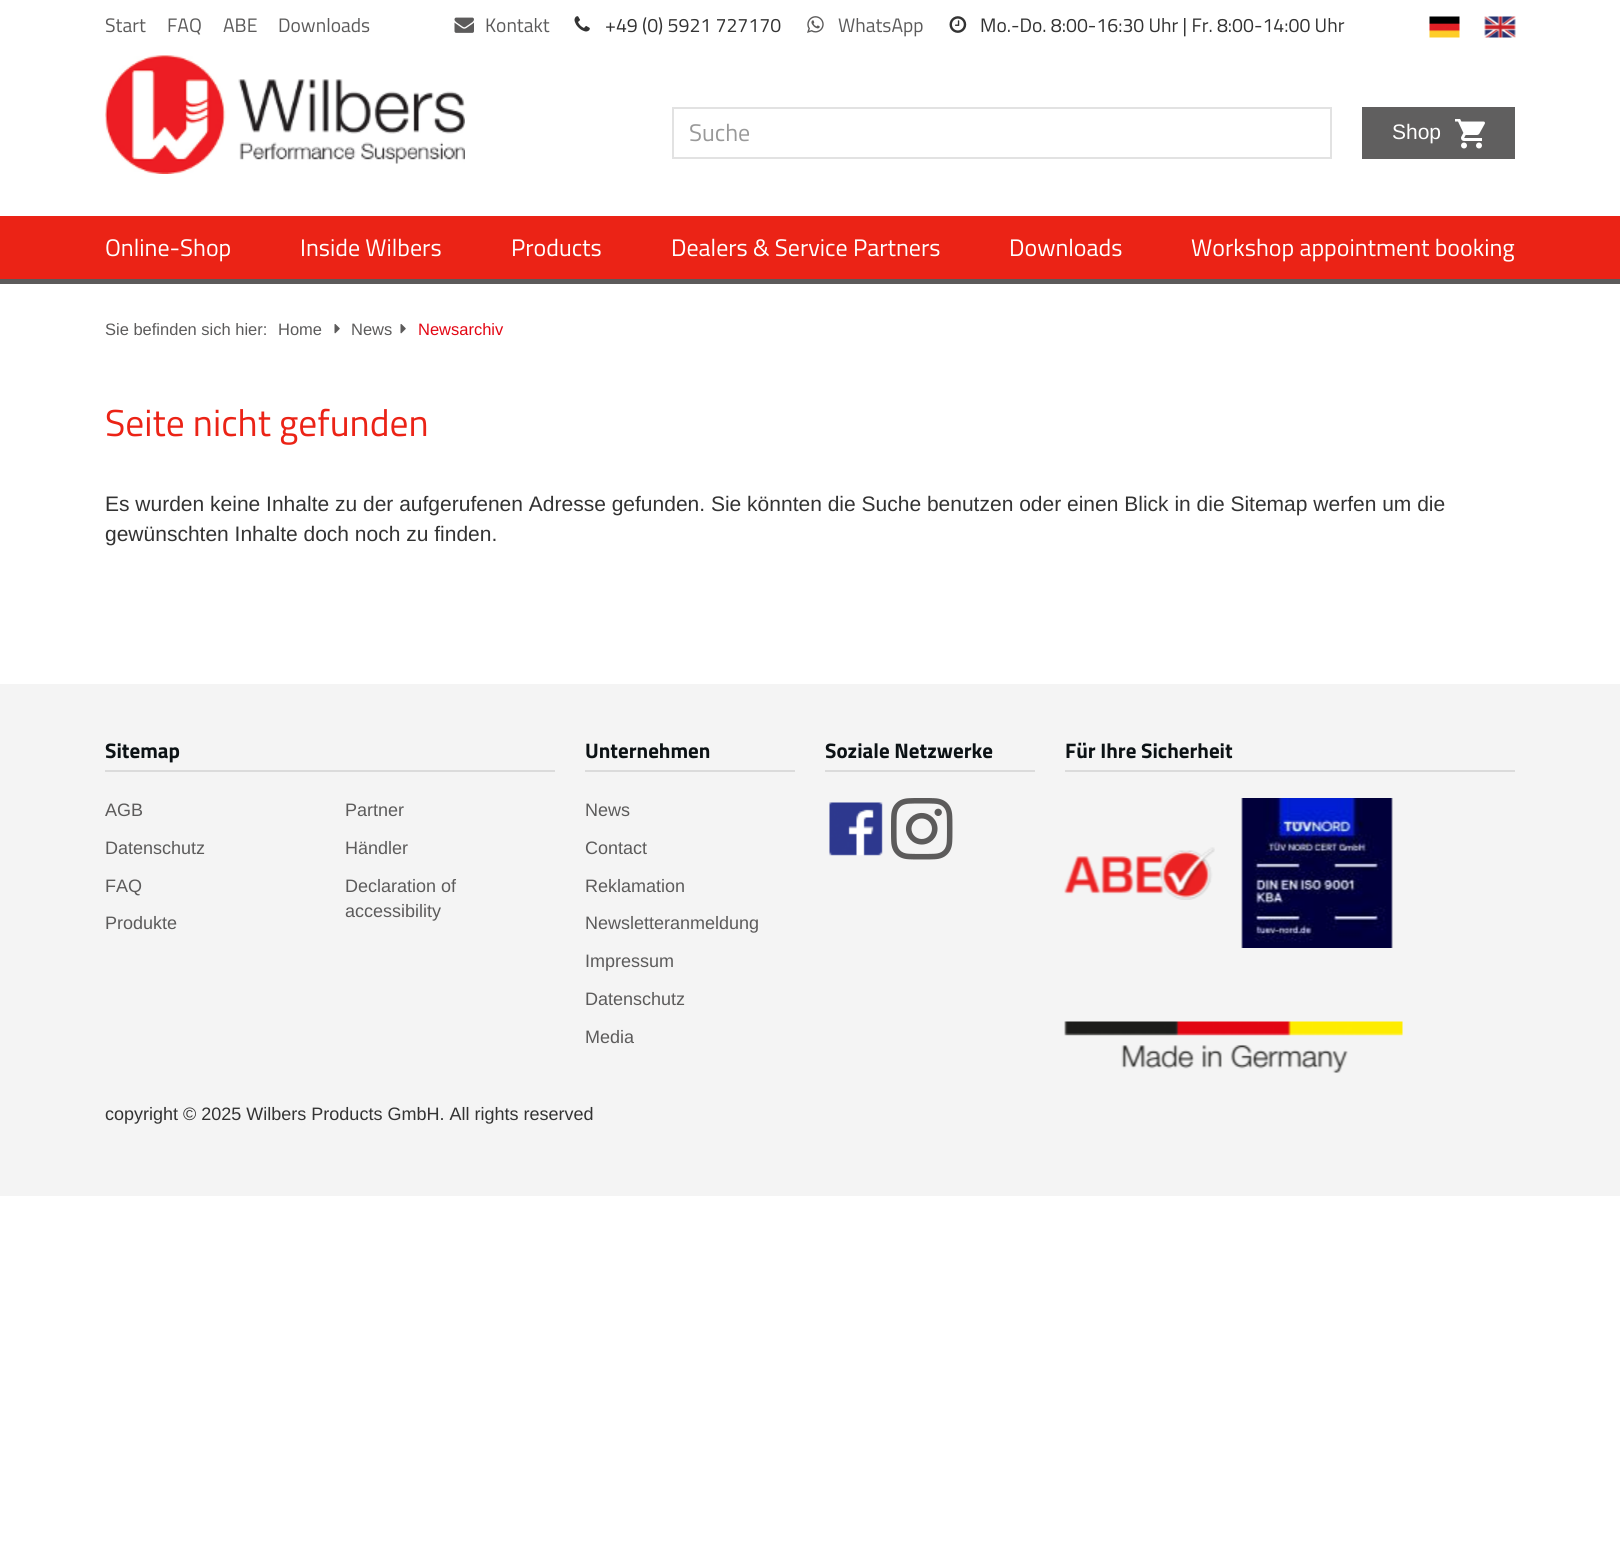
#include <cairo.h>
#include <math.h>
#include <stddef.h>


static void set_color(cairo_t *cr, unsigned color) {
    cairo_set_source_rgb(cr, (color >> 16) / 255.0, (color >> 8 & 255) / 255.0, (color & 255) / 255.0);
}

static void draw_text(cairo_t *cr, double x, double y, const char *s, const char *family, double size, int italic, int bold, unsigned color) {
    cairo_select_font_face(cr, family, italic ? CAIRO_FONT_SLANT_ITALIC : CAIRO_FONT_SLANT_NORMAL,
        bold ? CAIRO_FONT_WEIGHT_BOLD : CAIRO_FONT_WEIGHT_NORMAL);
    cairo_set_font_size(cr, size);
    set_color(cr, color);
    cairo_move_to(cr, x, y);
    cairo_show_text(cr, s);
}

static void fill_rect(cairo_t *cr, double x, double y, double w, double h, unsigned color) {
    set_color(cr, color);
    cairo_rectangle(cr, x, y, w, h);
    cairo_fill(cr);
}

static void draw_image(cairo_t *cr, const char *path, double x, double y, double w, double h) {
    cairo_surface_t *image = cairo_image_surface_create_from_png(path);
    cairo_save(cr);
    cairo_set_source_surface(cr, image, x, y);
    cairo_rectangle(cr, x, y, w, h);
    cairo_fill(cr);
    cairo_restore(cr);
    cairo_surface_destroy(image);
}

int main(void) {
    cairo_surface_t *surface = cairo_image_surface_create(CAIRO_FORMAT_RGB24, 1620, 1568);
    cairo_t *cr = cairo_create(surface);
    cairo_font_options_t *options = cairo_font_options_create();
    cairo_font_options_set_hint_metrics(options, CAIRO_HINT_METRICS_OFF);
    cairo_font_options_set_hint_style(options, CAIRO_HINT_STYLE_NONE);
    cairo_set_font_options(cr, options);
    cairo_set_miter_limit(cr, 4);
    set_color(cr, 0xFFFFFF);
    cairo_paint(cr);
    draw_text(cr, 105, 32, "Start", "Titillium Web", 19.5, 0, 0, 0x5C5B5B);
    draw_text(cr, 167, 32, "FAQ", "Titillium Web", 19.5, 0, 0, 0x5C5B5B);
    draw_text(cr, 223, 32, "ABE", "Titillium Web", 19.5, 0, 0, 0x5C5B5B);
    draw_text(cr, 278, 32, "Downloads", "Titillium Web", 19.5, 0, 0, 0x5C5B5B);
    draw_image(cr, "assets/img1.png", 454, 17, 20, 16);
    draw_text(cr, 485, 32, "Kontakt", "Titillium Web", 19.5, 0, 0, 0x5C5B5B);
    draw_image(cr, "assets/img2.png", 574, 16, 16, 16);
    draw_text(cr, 605, 32, "+49 (0) 5921 727170", "Titillium Web", 19.5, 0, 0, 0x333333);
    draw_image(cr, "assets/img3.png", 807, 16, 17, 17);
    draw_text(cr, 838, 32, "WhatsApp", "Titillium Web", 19.5, 0, 0, 0x5C5B5B);
    draw_image(cr, "assets/img4.png", 949, 16, 18, 17);
    draw_text(cr, 980, 32, "Mo.-Do. 8:00-16:30 Uhr | Fr. 8:00-14:00 Uhr", "Titillium Web", 19.5, 0, 0, 0x333333);
    draw_image(cr, "assets/img5.png", 1429, 16, 31, 22);
    draw_image(cr, "assets/img6.png", 1484, 16, 32, 22);
    draw_image(cr, "assets/img7.png", 105, 55, 360, 119);
    cairo_rectangle(cr, 673, 108, 658, 50);
    set_color(cr, 0xE2E2E2);
    cairo_stroke(cr);
    draw_text(cr, 689, 141, "Suche", "Titillium Web", 24, 0, 0, 0x999999);
    fill_rect(cr, 1362, 107, 153, 52, 0x605F5F);
    draw_text(cr, 1392, 139, "Shop", "Liberation Sans", 21, 0, 0, 0xFFFFFF);
    draw_image(cr, "assets/img8.png", 1455, 119, 30, 30);
    fill_rect(cr, 0, 216, 1620, 63, 0xEB2316);
    fill_rect(cr, 0, 279, 1620, 5, 0x5C5B5B);
    draw_text(cr, 105, 256, "Online-Shop", "Titillium Web", 24, 0, 0, 0xFFFFFF);
    draw_text(cr, 300, 256, "Inside Wilbers", "Titillium Web", 24, 0, 0, 0xFFFFFF);
    draw_text(cr, 511, 256, "Products", "Titillium Web", 24, 0, 0, 0xFFFFFF);
    draw_text(cr, 671, 256, "Dealers & Service Partners", "Titillium Web", 24, 0, 0, 0xFFFFFF);
    draw_text(cr, 1009, 256, "Downloads", "Titillium Web", 24, 0, 0, 0xFFFFFF);
    draw_text(cr, 1191, 256, "Workshop appointment booking", "Titillium Web", 24, 0, 0, 0xFFFFFF);
    draw_text(cr, 105, 335, "Sie befinden sich hier:", "Liberation Sans", 16.5, 0, 0, 0x5C5B5B);
    draw_text(cr, 278, 335, "Home", "Liberation Sans", 16.5, 0, 0, 0x5C5B5B);
    draw_image(cr, "assets/img9.png", 334, 324, 6, 10);
    draw_text(cr, 351, 335, "News", "Liberation Sans", 16.5, 0, 0, 0x5C5B5B);
    draw_image(cr, "assets/img9.png", 400, 324, 6, 10);
    draw_text(cr, 418, 335, "Newsarchiv", "Liberation Sans", 16.5, 0, 0, 0xE30613);
    draw_text(cr, 105, 436, "Seite nicht gefunden", "Titillium Web", 37.5, 0, 0, 0xEB2316);
    draw_text(cr, 105, 511, "Es wurden keine Inhalte zu der aufgerufenen Adresse gefunden. Sie könnten die Suche benutzen oder einen Blick in die Sitemap werfen um die", "Liberation Sans", 21, 0, 0, 0x333333);
    draw_text(cr, 105, 541, "gewünschten Inhalte doch noch zu finden.", "Liberation Sans", 21, 0, 0, 0x333333);
    fill_rect(cr, 0, 684, 1620, 512, 0xF4F4F4);
    fill_rect(cr, 105, 770, 450, 2, 0xDBDBDB);
    draw_text(cr, 105, 758, "Sitemap", "Titillium Web", 21, 0, 1, 0x0C1215);
    draw_text(cr, 105, 816, "AGB", "Liberation Sans", 18, 0, 0, 0x5C5B5B);
    draw_text(cr, 105, 854, "Datenschutz", "Liberation Sans", 18, 0, 0, 0x5C5B5B);
    draw_text(cr, 105, 892, "FAQ", "Liberation Sans", 18, 0, 0, 0x5C5B5B);
    draw_text(cr, 105, 929, "Produkte", "Liberation Sans", 18, 0, 0, 0x5C5B5B);
    draw_text(cr, 345, 816, "Partner", "Liberation Sans", 18, 0, 0, 0x5C5B5B);
    draw_text(cr, 345, 854, "Händler", "Liberation Sans", 18, 0, 0, 0x5C5B5B);
    draw_text(cr, 345, 892, "Declaration of", "Liberation Sans", 18, 0, 0, 0x5C5B5B);
    draw_text(cr, 345, 917, "accessibility", "Liberation Sans", 18, 0, 0, 0x5C5B5B);
    fill_rect(cr, 585, 770, 210, 2, 0xDBDBDB);
    draw_text(cr, 585, 758, "Unternehmen", "Titillium Web", 21, 0, 1, 0x0C1215);
    draw_text(cr, 585, 816, "News", "Liberation Sans", 18, 0, 0, 0x5C5B5B);
    draw_text(cr, 585, 854, "Contact", "Liberation Sans", 18, 0, 0, 0x5C5B5B);
    draw_text(cr, 585, 892, "Reklamation", "Liberation Sans", 18, 0, 0, 0x5C5B5B);
    draw_text(cr, 585, 929, "Newsletteranmeldung", "Liberation Sans", 18, 0, 0, 0x5C5B5B);
    draw_text(cr, 585, 967, "Impressum", "Liberation Sans", 18, 0, 0, 0x5C5B5B);
    draw_text(cr, 585, 1005, "Datenschutz", "Liberation Sans", 18, 0, 0, 0x5C5B5B);
    draw_text(cr, 585, 1043, "Media", "Liberation Sans", 18, 0, 0, 0x5C5B5B);
    fill_rect(cr, 825, 770, 210, 2, 0xDBDBDB);
    draw_text(cr, 825, 758, "Soziale Netzwerke", "Titillium Web", 21, 0, 1, 0x0C1215);
    draw_image(cr, "assets/img10.png", 829, 802, 54, 54);
    draw_image(cr, "assets/img11.png", 891, 798, 62, 62);
    fill_rect(cr, 1065, 770, 450, 2, 0xDBDBDB);
    draw_text(cr, 1065, 758, "Für Ihre Sicherheit", "Titillium Web", 21, 0, 1, 0x0C1215);
    draw_image(cr, "assets/img12.png", 1064, 847, 151, 53);
    draw_image(cr, "assets/img13.png", 1241, 798, 152, 150);
    draw_image(cr, "assets/img14.png", 1064, 1021, 339, 52);
    draw_text(cr, 105, 1120, "copyright © 2025 Wilbers Products GmbH. All rights reserved", "Liberation Sans", 18, 0, 0, 0x333333);
    cairo_surface_write_to_png(surface, "output.png");
    cairo_font_options_destroy(options);
    cairo_destroy(cr);
    cairo_surface_destroy(surface);
    return 0;
}
